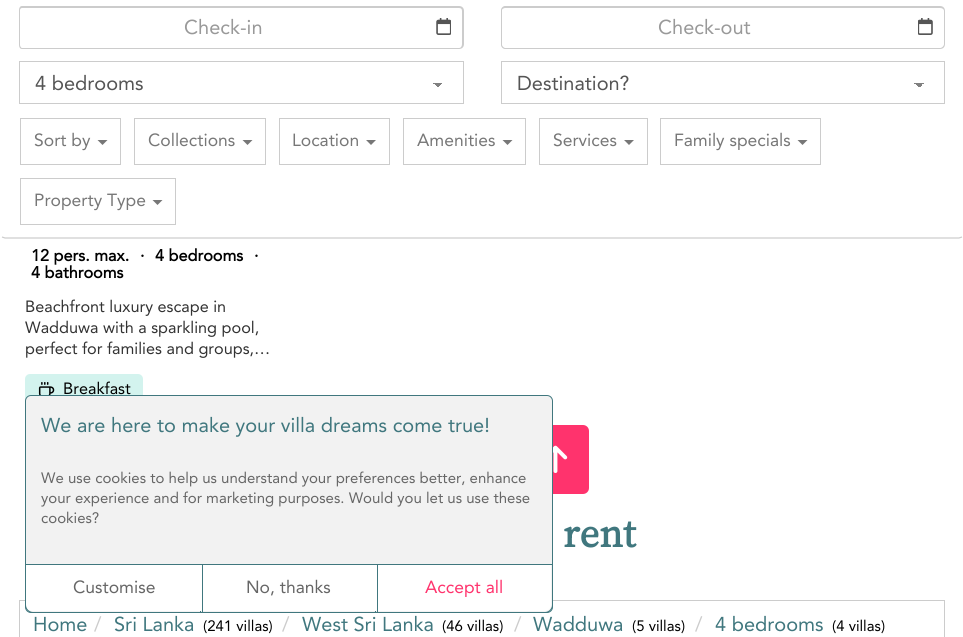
#include <cairo.h>
#include <math.h>
#include <stddef.h>


static void set_color(cairo_t *cr, unsigned color) {
    cairo_set_source_rgb(cr, (color >> 16) / 255.0, (color >> 8 & 255) / 255.0, (color & 255) / 255.0);
}

static void draw_text(cairo_t *cr, double x, double y, const char *s, const char *family, double size, int italic, int bold, unsigned color) {
    cairo_select_font_face(cr, family, italic ? CAIRO_FONT_SLANT_ITALIC : CAIRO_FONT_SLANT_NORMAL,
        bold ? CAIRO_FONT_WEIGHT_BOLD : CAIRO_FONT_WEIGHT_NORMAL);
    cairo_set_font_size(cr, size);
    set_color(cr, color);
    cairo_move_to(cr, x, y);
    cairo_show_text(cr, s);
}

static void fill_rect(cairo_t *cr, double x, double y, double w, double h, unsigned color) {
    set_color(cr, color);
    cairo_rectangle(cr, x, y, w, h);
    cairo_fill(cr);
}

static void rounded_rect(cairo_t *cr, double x, double y, double w, double h, double r) {
    cairo_new_sub_path(cr);
    cairo_arc(cr, x + w - r, y + h - r, r, 0, M_PI / 2);
    cairo_arc(cr, x + r, y + h - r, r, M_PI / 2, M_PI);
    cairo_arc(cr, x + r, y + r, r, M_PI, 1.5 * M_PI);
    cairo_arc(cr, x + w - r, y + r, r, 1.5 * M_PI, 2 * M_PI);
    cairo_close_path(cr);
}

static void draw_image(cairo_t *cr, const char *path, double x, double y, double w, double h) {
    cairo_surface_t *image = cairo_image_surface_create_from_png(path);
    cairo_save(cr);
    cairo_set_source_surface(cr, image, x, y);
    cairo_rectangle(cr, x, y, w, h);
    cairo_fill(cr);
    cairo_restore(cr);
    cairo_surface_destroy(image);
}

int main(void) {
    cairo_surface_t *surface = cairo_image_surface_create(CAIRO_FORMAT_RGB24, 963, 637);
    cairo_t *cr = cairo_create(surface);
    cairo_font_options_t *options = cairo_font_options_create();
    cairo_font_options_set_hint_metrics(options, CAIRO_HINT_METRICS_OFF);
    cairo_font_options_set_hint_style(options, CAIRO_HINT_STYLE_NONE);
    cairo_set_font_options(cr, options);
    cairo_set_miter_limit(cr, 4);
    cairo_pattern_t *gradient;
    set_color(cr, 0xFFFFFF);
    cairo_paint(cr);
    set_color(cr, 0xCCCCCC);
    cairo_set_fill_rule(cr, CAIRO_FILL_RULE_EVEN_ODD);
    cairo_new_path(cr);
    cairo_move_to(cr, 22, 6);
    cairo_line_to(cr, 426, 6);
    cairo_line_to(cr, 426, 49);
    cairo_line_to(cr, 22, 49);
    cairo_curve_to(cr, 20, 49, 19, 47, 19, 45);
    cairo_line_to(cr, 19, 10);
    cairo_curve_to(cr, 19, 8, 20, 6, 22, 6);
    cairo_close_path(cr);
    cairo_move_to(cr, 22, 8);
    cairo_line_to(cr, 426, 8);
    cairo_line_to(cr, 426, 48);
    cairo_line_to(cr, 22, 48);
    cairo_curve_to(cr, 21, 48, 20, 46, 20, 45);
    cairo_line_to(cr, 20, 10);
    cairo_curve_to(cr, 20, 9, 21, 8, 22, 8);
    cairo_close_path(cr);
    cairo_fill(cr);
    draw_text(cr, 184, 34, "Check-in", "Avenir", 20, 0, 0, 0x999999);
    set_color(cr, 0xCCCCCC);
    cairo_new_path(cr);
    cairo_move_to(cr, 426, 6);
    cairo_line_to(cr, 459, 6);
    cairo_curve_to(cr, 462, 6, 464, 8, 464, 11);
    cairo_line_to(cr, 464, 44);
    cairo_curve_to(cr, 464, 47, 462, 49, 459, 49);
    cairo_line_to(cr, 426, 49);
    cairo_close_path(cr);
    cairo_move_to(cr, 426, 8);
    cairo_line_to(cr, 459, 8);
    cairo_curve_to(cr, 461, 8, 462, 9, 462, 11);
    cairo_line_to(cr, 462, 44);
    cairo_curve_to(cr, 462, 46, 461, 48, 459, 48);
    cairo_line_to(cr, 426, 48);
    cairo_close_path(cr);
    cairo_fill(cr);
    draw_image(cr, "assets/img1.png", 436, 18, 15, 17);
    cairo_new_path(cr);
    cairo_move_to(cr, 505, 6);
    cairo_line_to(cr, 908, 6);
    cairo_line_to(cr, 908, 49);
    cairo_line_to(cr, 505, 49);
    cairo_curve_to(cr, 503, 49, 501, 47, 501, 45);
    cairo_line_to(cr, 501, 10);
    cairo_curve_to(cr, 501, 8, 503, 6, 505, 6);
    cairo_close_path(cr);
    cairo_move_to(cr, 505, 8);
    cairo_line_to(cr, 908, 8);
    cairo_line_to(cr, 908, 48);
    cairo_line_to(cr, 505, 48);
    cairo_curve_to(cr, 504, 48, 502, 46, 502, 45);
    cairo_line_to(cr, 502, 10);
    cairo_curve_to(cr, 502, 9, 504, 8, 505, 8);
    cairo_close_path(cr);
    cairo_fill(cr);
    draw_text(cr, 658, 34, "Check-out", "Avenir", 20, 0, 0, 0x999999);
    set_color(cr, 0xCCCCCC);
    cairo_new_path(cr);
    cairo_move_to(cr, 908, 6);
    cairo_line_to(cr, 940, 6);
    cairo_curve_to(cr, 943, 6, 945, 8, 945, 11);
    cairo_line_to(cr, 945, 44);
    cairo_curve_to(cr, 945, 47, 943, 49, 940, 49);
    cairo_line_to(cr, 908, 49);
    cairo_close_path(cr);
    cairo_move_to(cr, 908, 8);
    cairo_line_to(cr, 940, 8);
    cairo_curve_to(cr, 942, 8, 944, 9, 944, 11);
    cairo_line_to(cr, 944, 44);
    cairo_curve_to(cr, 944, 46, 942, 48, 940, 48);
    cairo_line_to(cr, 908, 48);
    cairo_close_path(cr);
    cairo_fill(cr);
    draw_image(cr, "assets/img2.png", 918, 18, 15, 17);
    gradient = cairo_pattern_create_linear(438, 82, 443, 88);
    cairo_pattern_add_color_stop_rgba(gradient, 0.5, 0.502, 0.502, 0.502, 1);
    cairo_pattern_add_color_stop_rgba(gradient, 0.5, 1, 1, 1, 1);
    cairo_set_source(cr, gradient);
    cairo_pattern_destroy(gradient);
    cairo_rectangle(cr, 438, 83, 6, 4);
    cairo_fill(cr);
    gradient = cairo_pattern_create_linear(433, 88, 438, 83);
    cairo_pattern_add_color_stop_rgba(gradient, 0.5, 1, 1, 1, 1);
    cairo_pattern_add_color_stop_rgba(gradient, 0.5, 0.502, 0.502, 0.502, 1);
    cairo_set_source(cr, gradient);
    cairo_pattern_destroy(gradient);
    cairo_rectangle(cr, 433, 83, 5, 4);
    cairo_fill(cr);
    cairo_rectangle(cr, 19.5, 61.5, 444, 42);
    set_color(cr, 0xCCCCCC);
    cairo_set_line_width(cr, 1);
    cairo_stroke(cr);
    draw_text(cr, 35, 90, "4 bedrooms", "Avenir", 20, 0, 0, 0x555555);
    gradient = cairo_pattern_create_linear(919, 82, 925, 88);
    cairo_pattern_add_color_stop_rgba(gradient, 0.5, 0.502, 0.502, 0.502, 1);
    cairo_pattern_add_color_stop_rgba(gradient, 0.5, 1, 1, 1, 1);
    cairo_set_source(cr, gradient);
    cairo_pattern_destroy(gradient);
    cairo_rectangle(cr, 919, 83, 6, 4);
    cairo_fill(cr);
    gradient = cairo_pattern_create_linear(914, 88, 919, 83);
    cairo_pattern_add_color_stop_rgba(gradient, 0.5, 1, 1, 1, 1);
    cairo_pattern_add_color_stop_rgba(gradient, 0.5, 0.502, 0.502, 0.502, 1);
    cairo_set_source(cr, gradient);
    cairo_pattern_destroy(gradient);
    cairo_rectangle(cr, 914, 83, 5, 4);
    cairo_fill(cr);
    cairo_rectangle(cr, 501.5, 61.5, 443, 42);
    set_color(cr, 0xCCCCCC);
    cairo_stroke(cr);
    draw_text(cr, 517, 90, "Destination?", "Avenir", 20, 0, 0, 0x555555);
    cairo_new_path(cr);
    cairo_move_to(cr, 962, 237);
    cairo_line_to(cr, 959, 238);
    cairo_line_to(cr, 5, 238);
    cairo_line_to(cr, 2, 237);
    set_color(cr, 0xCCCCCC);
    cairo_set_line_width(cr, 1.2);
    cairo_stroke(cr);
    cairo_rectangle(cr, 20.5, 118.5, 100, 46);
    cairo_set_line_width(cr, 1);
    cairo_stroke(cr);
    draw_text(cr, 34, 146, "Sort by", "Avenir", 17.5, 0, 0, 0x777777);
    cairo_set_fill_rule(cr, CAIRO_FILL_RULE_WINDING);
    cairo_new_path(cr);
    cairo_move_to(cr, 97.5, 140);
    cairo_line_to(cr, 107.5, 140);
    cairo_line_to(cr, 102.5, 145);
    cairo_close_path(cr);
    cairo_fill(cr);
    cairo_rectangle(cr, 134.5, 118.5, 131, 46);
    set_color(cr, 0xCCCCCC);
    cairo_stroke(cr);
    draw_text(cr, 148, 146, "Collections", "Avenir", 17.5, 0, 0, 0x777777);
    cairo_new_path(cr);
    cairo_move_to(cr, 242.5, 140);
    cairo_line_to(cr, 252.5, 140);
    cairo_line_to(cr, 247.5, 145);
    cairo_close_path(cr);
    cairo_fill(cr);
    cairo_rectangle(cr, 279.5, 118.5, 110, 46);
    set_color(cr, 0xCCCCCC);
    cairo_stroke(cr);
    draw_text(cr, 292, 146, "Location", "Avenir", 17.5, 0, 0, 0x777777);
    cairo_new_path(cr);
    cairo_move_to(cr, 366, 140);
    cairo_line_to(cr, 376, 140);
    cairo_line_to(cr, 371, 145);
    cairo_close_path(cr);
    cairo_fill(cr);
    cairo_rectangle(cr, 403.5, 118.5, 122, 46);
    set_color(cr, 0xCCCCCC);
    cairo_stroke(cr);
    draw_text(cr, 417, 146, "Amenities", "Avenir", 17.5, 0, 0, 0x777777);
    cairo_new_path(cr);
    cairo_move_to(cr, 502.5, 140);
    cairo_line_to(cr, 512.5, 140);
    cairo_line_to(cr, 507.5, 145);
    cairo_close_path(cr);
    cairo_fill(cr);
    cairo_rectangle(cr, 539.5, 118.5, 108, 46);
    set_color(cr, 0xCCCCCC);
    cairo_stroke(cr);
    draw_text(cr, 553, 146, "Services", "Avenir", 17.5, 0, 0, 0x777777);
    cairo_new_path(cr);
    cairo_move_to(cr, 624, 140);
    cairo_line_to(cr, 634, 140);
    cairo_line_to(cr, 629, 145);
    cairo_close_path(cr);
    cairo_fill(cr);
    cairo_rectangle(cr, 660.5, 118.5, 160, 46);
    set_color(cr, 0xCCCCCC);
    cairo_stroke(cr);
    draw_text(cr, 674, 146, "Family specials", "Avenir", 17.5, 0, 0, 0x777777);
    cairo_new_path(cr);
    cairo_move_to(cr, 797.5, 140);
    cairo_line_to(cr, 807.5, 140);
    cairo_line_to(cr, 802.5, 145);
    cairo_close_path(cr);
    cairo_fill(cr);
    cairo_rectangle(cr, 20.5, 178.5, 155, 46);
    set_color(cr, 0xCCCCCC);
    cairo_stroke(cr);
    draw_text(cr, 34, 206, "Property Type", "Avenir", 17.5, 0, 0, 0x777777);
    cairo_new_path(cr);
    cairo_move_to(cr, 152.5, 200);
    cairo_line_to(cr, 162.5, 200);
    cairo_line_to(cr, 157.5, 205);
    cairo_close_path(cr);
    cairo_fill(cr);
    draw_text(cr, 31, 261, "12 pers. max.", "Avenir", 16.25, 0, 1, 0x000000);
    draw_text(cr, 140, 261, "·", "Avenir", 16.25, 0, 1, 0x000000);
    draw_text(cr, 155, 261, "4 bedrooms", "Avenir", 16.25, 0, 1, 0x000000);
    draw_text(cr, 254, 261, "·", "Avenir", 16.25, 0, 1, 0x000000);
    draw_text(cr, 31, 278, "4 bathrooms", "Avenir", 16.25, 0, 1, 0x000000);
    draw_text(cr, 25, 312, "Beachfront luxury escape in", "Avenir", 16.25, 0, 0, 0x333333);
    draw_text(cr, 25, 333, "Wadduwa with a sparkling pool,", "Avenir", 16.25, 0, 0, 0x333333);
    draw_text(cr, 25, 354, "perfect for families and groups,…", "Avenir", 16.25, 0, 0, 0x333333);
    set_color(cr, 0xD3F3EE);
    rounded_rect(cr, 25, 374, 118, 32, 5);
    cairo_fill(cr);
    draw_image(cr, "assets/img3.png", 38, 382, 17, 13);
    draw_text(cr, 63, 394, "Breakfast", "Avenir", 16.25, 0, 0, 0x000000);
    set_color(cr, 0xFF336D);
    rounded_rect(cr, 356, 425, 233, 69, 6);
    cairo_fill(cr);
    draw_image(cr, "assets/img4.png", 553, 445, 15, 28);
    draw_text(cr, 563, 547, "rent", "Source Serif 4", 40, 0, 1, 0x40777E);
    cairo_rectangle(cr, 19.5, 600.5, 925, 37);
    set_color(cr, 0xCCCCCC);
    cairo_stroke(cr);
    draw_text(cr, 33, 631, "Home", "Avenir", 20, 0, 0, 0x40777E);
    draw_text(cr, 94, 631, "/", "Avenir", 20, 0, 0, 0xCCCCCC);
    draw_text(cr, 114, 631, "Sri Lanka", "Avenir", 20, 0, 0, 0x40777E);
    draw_text(cr, 203, 631, "(241 villas)", "Avenir", 15, 0, 0, 0x000000);
    draw_text(cr, 282, 631, "/", "Avenir", 20, 0, 0, 0xCCCCCC);
    draw_text(cr, 302, 631, "West Sri Lanka", "Avenir", 20, 0, 0, 0x40777E);
    draw_text(cr, 442, 631, "(46 villas)", "Avenir", 15, 0, 0, 0x000000);
    draw_text(cr, 514, 631, "/", "Avenir", 20, 0, 0, 0xCCCCCC);
    draw_text(cr, 533, 631, "Wadduwa", "Avenir", 20, 0, 0, 0x40777E);
    draw_text(cr, 632, 631, "(5 villas)", "Avenir", 15, 0, 0, 0x000000);
    draw_text(cr, 695, 631, "/", "Avenir", 20, 0, 0, 0xCCCCCC);
    draw_text(cr, 715, 631, "4 bedrooms", "Avenir", 20, 0, 0, 0x40777E);
    draw_text(cr, 832, 631, "(4 villas)", "Avenir", 15, 0, 0, 0x000000);
    set_color(cr, 0xF2F2F2);
    rounded_rect(cr, 25.5, 395.5, 527, 217, 5.5);
    cairo_fill_preserve(cr);
    set_color(cr, 0x40777E);
    cairo_stroke(cr);
    draw_text(cr, 41, 432, "We are here to make your villa dreams come true!", "Avenir", 20, 0, 0, 0x40777E);
    draw_text(cr, 41, 483, "We use cookies to help us understand your preferences better, enhance", "Avenir", 15, 0, 0, 0x666666);
    draw_text(cr, 41, 503, "your experience and for marketing purposes. Would you let us use these", "Avenir", 15, 0, 0, 0x666666);
    draw_text(cr, 41, 523, "cookies?", "Avenir", 15, 0, 0, 0x666666);
    set_color(cr, 0xFFFFFF);
    cairo_new_path(cr);
    cairo_move_to(cr, 376, 565);
    cairo_line_to(cr, 551, 565);
    cairo_line_to(cr, 551, 605);
    cairo_curve_to(cr, 551, 608.5, 548.5, 611, 545, 611);
    cairo_line_to(cr, 376, 611);
    cairo_close_path(cr);
    cairo_fill(cr);
    cairo_new_path(cr);
    cairo_move_to(cr, 375.5, 564.5);
    cairo_line_to(cr, 552.5, 564.5);
    cairo_line_to(cr, 552.5, 605);
    cairo_curve_to(cr, 552.5, 609, 549, 612.5, 545, 612.5);
    cairo_line_to(cr, 375.5, 612.5);
    cairo_close_path(cr);
    set_color(cr, 0x40777E);
    cairo_stroke(cr);
    fill_rect(cr, 201, 565, 175, 46, 0xFFFFFF);
    cairo_rectangle(cr, 200.5, 564.5, 177, 48);
    set_color(cr, 0x40777E);
    cairo_stroke(cr);
    set_color(cr, 0xFFFFFF);
    cairo_new_path(cr);
    cairo_move_to(cr, 26, 565);
    cairo_line_to(cr, 201, 565);
    cairo_line_to(cr, 201, 611);
    cairo_line_to(cr, 32, 611);
    cairo_curve_to(cr, 28.5, 611, 26, 608.5, 26, 605);
    cairo_close_path(cr);
    cairo_fill(cr);
    cairo_new_path(cr);
    cairo_move_to(cr, 25.5, 564.5);
    cairo_line_to(cr, 202.5, 564.5);
    cairo_line_to(cr, 202.5, 612.5);
    cairo_line_to(cr, 33, 612.5);
    cairo_curve_to(cr, 29, 612.5, 25.5, 609, 25.5, 605);
    cairo_close_path(cr);
    set_color(cr, 0x40777E);
    cairo_stroke(cr);
    draw_text(cr, 73, 593, "Customise", "Avenir", 17.5, 0, 0, 0x666666);
    draw_text(cr, 246, 593, "No, thanks", "Avenir", 17.5, 0, 0, 0x666666);
    draw_text(cr, 425, 593, "Accept all", "Avenir", 17.5, 0, 0, 0xFF336D);
    cairo_surface_write_to_png(surface, "output.png");
    cairo_font_options_destroy(options);
    cairo_destroy(cr);
    cairo_surface_destroy(surface);
    return 0;
}
